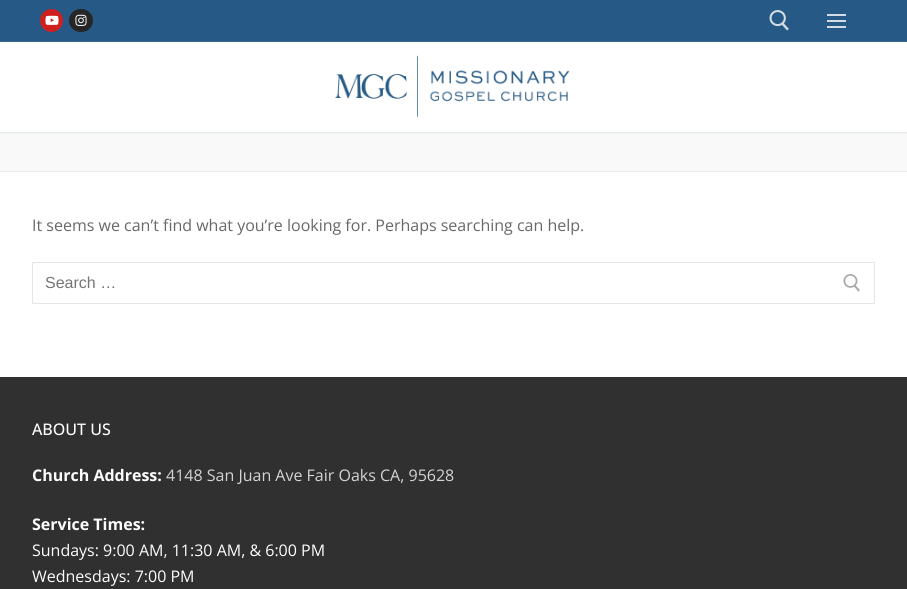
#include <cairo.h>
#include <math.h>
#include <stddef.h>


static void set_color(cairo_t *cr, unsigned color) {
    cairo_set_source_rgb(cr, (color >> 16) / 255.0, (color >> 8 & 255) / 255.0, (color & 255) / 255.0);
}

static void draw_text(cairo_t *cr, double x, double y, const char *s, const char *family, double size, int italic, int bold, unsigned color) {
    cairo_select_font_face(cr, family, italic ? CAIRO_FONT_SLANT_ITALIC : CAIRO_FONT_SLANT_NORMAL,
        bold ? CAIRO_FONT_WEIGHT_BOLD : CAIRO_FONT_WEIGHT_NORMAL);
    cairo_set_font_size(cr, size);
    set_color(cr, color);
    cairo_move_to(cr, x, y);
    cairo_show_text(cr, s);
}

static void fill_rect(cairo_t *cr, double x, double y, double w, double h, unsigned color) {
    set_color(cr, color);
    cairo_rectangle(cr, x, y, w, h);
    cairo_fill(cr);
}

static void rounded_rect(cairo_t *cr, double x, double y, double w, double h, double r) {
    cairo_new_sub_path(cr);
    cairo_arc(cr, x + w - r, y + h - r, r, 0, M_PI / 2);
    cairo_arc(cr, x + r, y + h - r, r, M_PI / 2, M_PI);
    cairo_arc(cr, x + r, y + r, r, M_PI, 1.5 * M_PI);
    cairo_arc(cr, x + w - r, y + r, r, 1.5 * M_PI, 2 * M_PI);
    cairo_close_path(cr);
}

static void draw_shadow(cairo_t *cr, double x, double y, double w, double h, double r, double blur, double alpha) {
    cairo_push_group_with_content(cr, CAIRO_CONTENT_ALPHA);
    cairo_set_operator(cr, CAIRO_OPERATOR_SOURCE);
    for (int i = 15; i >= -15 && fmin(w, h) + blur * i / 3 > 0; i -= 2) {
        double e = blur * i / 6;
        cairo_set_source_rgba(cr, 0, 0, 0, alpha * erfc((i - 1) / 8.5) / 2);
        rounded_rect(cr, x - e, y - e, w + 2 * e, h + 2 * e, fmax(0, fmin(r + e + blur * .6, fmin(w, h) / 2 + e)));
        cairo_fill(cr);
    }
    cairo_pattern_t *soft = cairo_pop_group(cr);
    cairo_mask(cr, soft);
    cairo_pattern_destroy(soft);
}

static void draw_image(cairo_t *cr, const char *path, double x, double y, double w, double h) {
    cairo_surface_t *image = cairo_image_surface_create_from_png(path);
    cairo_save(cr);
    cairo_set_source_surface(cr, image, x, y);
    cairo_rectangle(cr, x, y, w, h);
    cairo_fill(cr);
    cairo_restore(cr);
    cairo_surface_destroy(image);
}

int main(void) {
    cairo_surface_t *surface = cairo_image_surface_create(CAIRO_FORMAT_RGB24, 907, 589);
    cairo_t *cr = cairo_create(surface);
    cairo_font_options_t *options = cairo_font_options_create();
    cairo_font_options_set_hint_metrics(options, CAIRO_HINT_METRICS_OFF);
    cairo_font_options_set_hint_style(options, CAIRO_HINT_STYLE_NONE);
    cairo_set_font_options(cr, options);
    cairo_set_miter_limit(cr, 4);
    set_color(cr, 0xFFFFFF);
    cairo_paint(cr);
    fill_rect(cr, 0, 0, 907, 42, 0x265985);
    set_color(cr, 0xCD201F);
    cairo_arc(cr, 51.5, 20.5, 11.5, 0, 2 * M_PI);
    cairo_fill(cr);
    draw_image(cr, "assets/img1.png", 45, 15, 14, 10);
    set_color(cr, 0x262626);
    rounded_rect(cr, 69, 9, 24, 23, 11.5);
    cairo_fill(cr);
    draw_image(cr, "assets/img2.png", 75, 14, 12, 12);
    draw_image(cr, "assets/img3.png", 769, 10, 20, 21);
    fill_rect(cr, 827, 20, 19, 2, 0xD1DCE5);
    fill_rect(cr, 827, 14, 19, 2, 0xD1DCE5);
    fill_rect(cr, 827, 26, 19, 2, 0xD1DCE5);
    fill_rect(cr, 0, 132, 907, 39, 0xF9F9F9);
    cairo_save(cr);
    cairo_set_fill_rule(cr, CAIRO_FILL_RULE_EVEN_ODD);
    cairo_new_path(cr);
    cairo_move_to(cr, 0, 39);
    cairo_line_to(cr, 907, 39);
    cairo_line_to(cr, 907, 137);
    cairo_line_to(cr, 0, 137);
    cairo_close_path(cr);
    cairo_move_to(cr, 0, 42);
    cairo_line_to(cr, 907, 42);
    cairo_line_to(cr, 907, 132);
    cairo_line_to(cr, 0, 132);
    cairo_close_path(cr);
    cairo_clip(cr);
    set_color(cr, 0xE1E5EA);
    draw_shadow(cr, 0, 43, 907, 90, 0, 1, 1);
    cairo_restore(cr);
    draw_image(cr, "assets/img4.png", 334, 55, 236, 63);
    fill_rect(cr, 0, 171, 907, 1, 0xEAECEE);
    draw_text(cr, 32, 231, "It seems we can’t find what you’re looking for. Perhaps searching can help.", "Open Sans", 16, 0, 0, 0x686868);
    rounded_rect(cr, 32.5, 262.5, 842, 41, 0.5);
    set_color(cr, 0xE5E5E5);
    cairo_set_line_width(cr, 1);
    cairo_stroke(cr);
    draw_text(cr, 45, 288, "Search …", "Liberation Sans", 16, 0, 0, 0x757575);
    draw_image(cr, "assets/img5.png", 843, 274, 17, 18);
    fill_rect(cr, 0, 377, 907, 212, 0x303030);
    draw_text(cr, 32, 435, "ABOUT US", "Open Sans Medium", 16, 0, 0, 0xFDFDFD);
    draw_text(cr, 32, 481, "Church Address:", "Open Sans", 16, 0, 1, 0xFDFDFD);
    draw_text(cr, 166, 481, "4148 San Juan Ave Fair Oaks CA, 95628", "Open Sans", 16, 0, 0, 0xD4D4D4);
    draw_text(cr, 32, 530, "Service Times:", "Open Sans", 16, 0, 1, 0xFDFDFD);
    draw_text(cr, 32, 556, "Sundays: 9:00 AM, 11:30 AM, & 6:00 PM", "Open Sans", 16, 0, 0, 0xFDFDFD);
    draw_text(cr, 32, 582, "Wednesdays: 7:00 PM", "Open Sans", 16, 0, 0, 0xFDFDFD);
    cairo_surface_write_to_png(surface, "output.png");
    cairo_font_options_destroy(options);
    cairo_destroy(cr);
    cairo_surface_destroy(surface);
    return 0;
}
